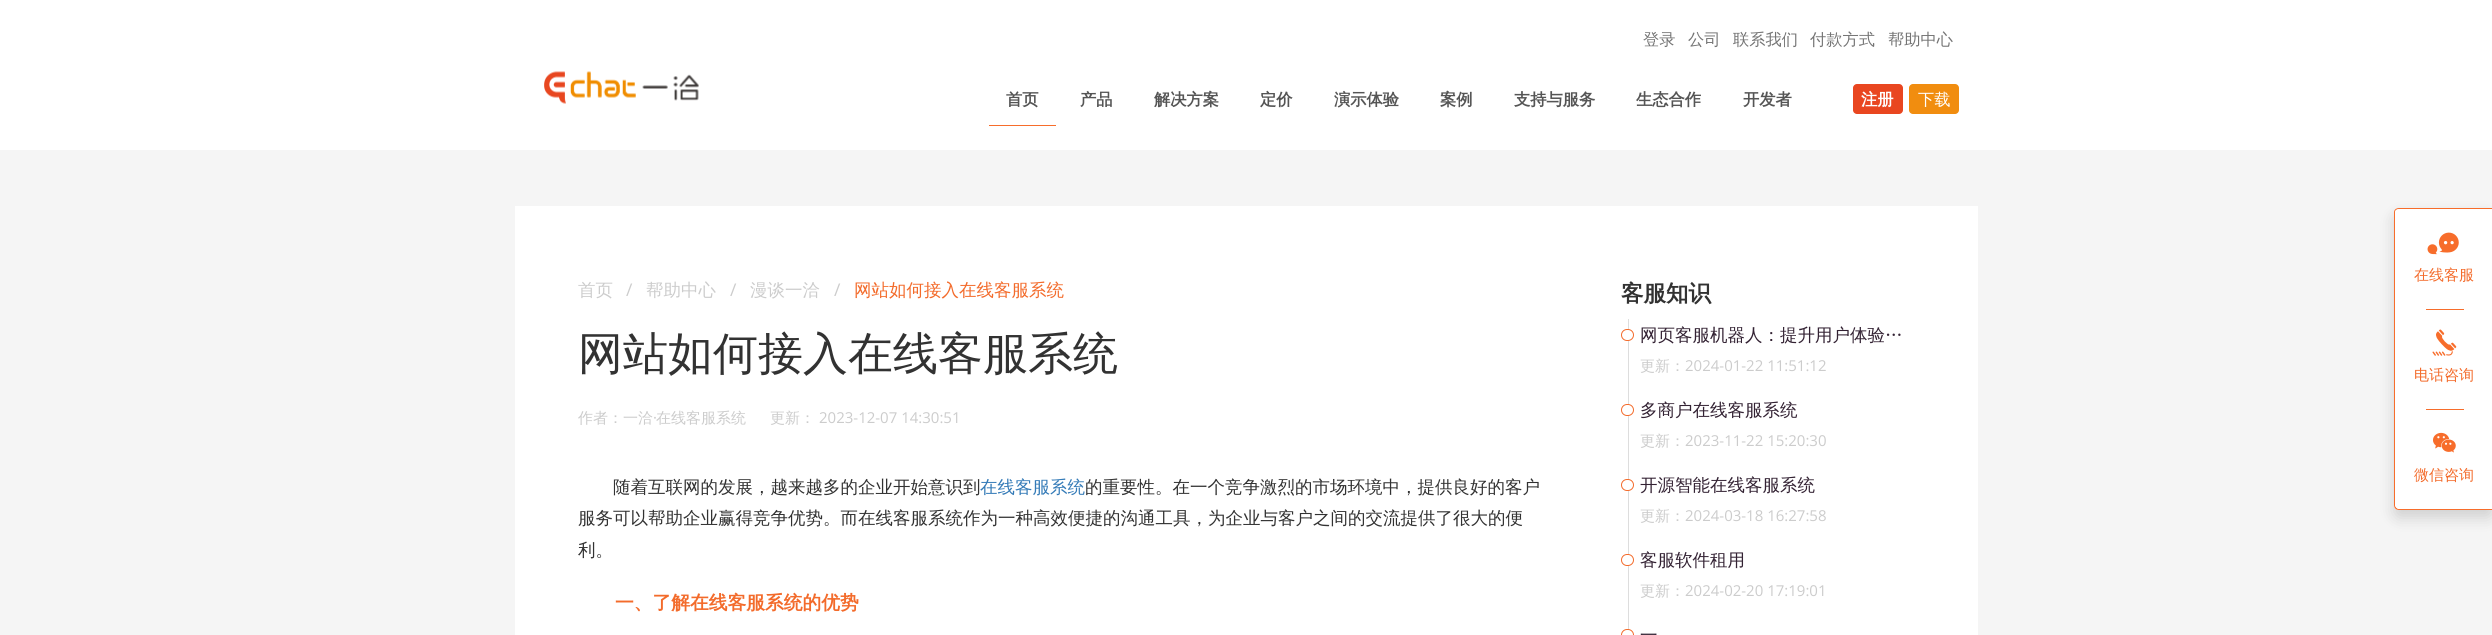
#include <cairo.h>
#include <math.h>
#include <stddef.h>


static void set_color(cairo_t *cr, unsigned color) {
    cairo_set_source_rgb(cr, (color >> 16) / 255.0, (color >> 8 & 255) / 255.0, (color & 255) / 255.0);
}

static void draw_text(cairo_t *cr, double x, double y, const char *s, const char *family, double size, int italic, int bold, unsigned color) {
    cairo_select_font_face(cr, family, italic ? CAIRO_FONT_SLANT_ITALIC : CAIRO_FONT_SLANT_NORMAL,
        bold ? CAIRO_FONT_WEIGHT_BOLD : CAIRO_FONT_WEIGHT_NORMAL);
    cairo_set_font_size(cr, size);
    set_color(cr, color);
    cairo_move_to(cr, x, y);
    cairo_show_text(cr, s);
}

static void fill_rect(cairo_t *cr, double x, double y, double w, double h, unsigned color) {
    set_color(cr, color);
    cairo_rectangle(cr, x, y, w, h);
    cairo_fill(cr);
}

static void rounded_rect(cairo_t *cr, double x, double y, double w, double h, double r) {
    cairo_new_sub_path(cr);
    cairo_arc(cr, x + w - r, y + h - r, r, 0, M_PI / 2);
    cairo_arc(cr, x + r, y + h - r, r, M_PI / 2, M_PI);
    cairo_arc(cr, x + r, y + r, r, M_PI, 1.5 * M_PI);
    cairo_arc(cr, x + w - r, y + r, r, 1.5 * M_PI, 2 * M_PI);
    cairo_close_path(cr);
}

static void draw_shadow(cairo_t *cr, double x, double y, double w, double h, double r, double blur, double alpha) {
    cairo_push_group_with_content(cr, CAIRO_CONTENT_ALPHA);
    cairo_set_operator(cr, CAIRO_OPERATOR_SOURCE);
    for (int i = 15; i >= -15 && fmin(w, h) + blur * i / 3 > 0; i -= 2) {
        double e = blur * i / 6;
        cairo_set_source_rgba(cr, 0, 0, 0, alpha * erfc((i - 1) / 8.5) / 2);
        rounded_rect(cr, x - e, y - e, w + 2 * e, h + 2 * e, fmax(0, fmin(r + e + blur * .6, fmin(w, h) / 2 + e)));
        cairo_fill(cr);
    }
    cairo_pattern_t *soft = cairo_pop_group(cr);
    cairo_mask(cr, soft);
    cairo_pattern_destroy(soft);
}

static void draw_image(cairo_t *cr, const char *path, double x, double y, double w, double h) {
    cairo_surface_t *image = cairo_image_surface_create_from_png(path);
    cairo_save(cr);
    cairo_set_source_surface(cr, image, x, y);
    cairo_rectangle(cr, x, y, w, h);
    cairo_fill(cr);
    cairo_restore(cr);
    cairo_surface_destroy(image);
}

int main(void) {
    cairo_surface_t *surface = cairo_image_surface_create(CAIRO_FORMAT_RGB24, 2492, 635);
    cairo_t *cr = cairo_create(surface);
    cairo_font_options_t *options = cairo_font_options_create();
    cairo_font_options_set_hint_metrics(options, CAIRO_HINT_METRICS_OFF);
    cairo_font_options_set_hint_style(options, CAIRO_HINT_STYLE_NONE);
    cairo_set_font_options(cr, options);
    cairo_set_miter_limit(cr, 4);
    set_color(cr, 0xFFFFFF);
    cairo_paint(cr);
    draw_text(cr, 1643, 45, "登录", "WenQuanYi Zen Hei Medium", 16.25, 0, 0, 0x747474);
    draw_text(cr, 1688, 45, "公司", "WenQuanYi Zen Hei Medium", 16.25, 0, 0, 0x747474);
    draw_text(cr, 1733, 45, "联系我们", "WenQuanYi Zen Hei Medium", 16.25, 0, 0, 0x747474);
    draw_text(cr, 1810, 45, "付款方式", "WenQuanYi Zen Hei Medium", 16.25, 0, 0, 0x747474);
    draw_text(cr, 1888, 45, "帮助中心", "WenQuanYi Zen Hei Medium", 16.25, 0, 0, 0x747474);
    draw_image(cr, "assets/img1.png", 544, 71, 155, 33);
    draw_text(cr, 1006, 105, "首页", "WenQuanYi Zen Hei", 16.25, 0, 1, 0x555555);
    fill_rect(cr, 989, 125, 67, 1, 0xF76D2B);
    draw_text(cr, 1080, 105, "产品", "WenQuanYi Zen Hei", 16.25, 0, 1, 0x555555);
    draw_text(cr, 1154, 105, "解决方案", "WenQuanYi Zen Hei", 16.25, 0, 1, 0x555555);
    draw_text(cr, 1260, 105, "定价", "WenQuanYi Zen Hei", 16.25, 0, 1, 0x555555);
    draw_text(cr, 1334, 105, "演示体验", "WenQuanYi Zen Hei", 16.25, 0, 1, 0x555555);
    draw_text(cr, 1440, 105, "案例", "WenQuanYi Zen Hei", 16.25, 0, 1, 0x555555);
    draw_text(cr, 1514, 105, "支持与服务", "WenQuanYi Zen Hei", 16.25, 0, 1, 0x555555);
    draw_text(cr, 1636, 105, "生态合作", "WenQuanYi Zen Hei", 16.25, 0, 1, 0x555555);
    draw_text(cr, 1743, 105, "开发者", "WenQuanYi Zen Hei", 16.25, 0, 1, 0x555555);
    set_color(cr, 0xE94620);
    rounded_rect(cr, 1853, 84, 50, 30, 4);
    cairo_fill(cr);
    draw_text(cr, 1861, 105, "注册", "WenQuanYi Zen Hei", 16.25, 0, 1, 0xFFFFFF);
    set_color(cr, 0xF18D0F);
    rounded_rect(cr, 1909, 84, 50, 30, 4);
    cairo_fill(cr);
    draw_text(cr, 1918, 105, "下载", "WenQuanYi Zen Hei Medium", 16.25, 0, 0, 0xFFFFFF);
    fill_rect(cr, 0, 150, 2492, 485, 0xF5F5F5);
    fill_rect(cr, 515, 206, 1463, 429, 0xFFFFFF);
    draw_text(cr, 578, 296, "首页", "WenQuanYi Zen Hei Medium", 17.5, 0, 0, 0xCCCCCC);
    draw_text(cr, 626, 296, "/", "Open Sans", 17.5, 0, 0, 0xCCCCCC);
    draw_text(cr, 646, 296, "帮助中心", "WenQuanYi Zen Hei Medium", 17.5, 0, 0, 0xCCCCCC);
    draw_text(cr, 730, 296, "/", "Open Sans", 17.5, 0, 0, 0xCCCCCC);
    draw_text(cr, 750, 296, "漫谈一洽", "WenQuanYi Zen Hei Medium", 17.5, 0, 0, 0xCCCCCC);
    draw_text(cr, 834, 296, "/", "Open Sans", 17.5, 0, 0, 0xCCCCCC);
    draw_text(cr, 854, 296, "网站如何接入在线客服系统", "WenQuanYi Zen Hei Medium", 17.5, 0, 0, 0xF36B2B);
    draw_text(cr, 578, 369, "网站如何接入在线客服系统", "WenQuanYi Zen Hei Medium", 45, 0, 0, 0x323232);
    draw_text(cr, 578, 423, "作者：一洽", "WenQuanYi Zen Hei Medium", 15, 0, 0, 0xCCCCCC);
    draw_text(cr, 653, 423, "·", "Open Sans", 15, 0, 0, 0xCCCCCC);
    draw_text(cr, 656, 423, "在线客服系统", "WenQuanYi Zen Hei Medium", 15, 0, 0, 0xCCCCCC);
    draw_text(cr, 770, 423, "更新：", "WenQuanYi Zen Hei Medium", 15, 0, 0, 0xCCCCCC);
    draw_text(cr, 819, 423, "2023-12-07 14:30:51", "Open Sans", 15, 0, 0, 0xCCCCCC);
    draw_text(cr, 613, 493, "随着互联网的发展，越来越多的企业开始意识到", "WenQuanYi Zen Hei Medium", 17.5, 0, 0, 0x323232);
    draw_text(cr, 980, 493, "在线客服系统", "WenQuanYi Zen Hei Medium", 17.5, 0, 0, 0x337AB7);
    draw_text(cr, 1085, 493, "的重要性。在一个竞争激烈的市场环境中，提供良好的客户", "WenQuanYi Zen Hei Medium", 17.5, 0, 0, 0x323232);
    draw_text(cr, 578, 524, "服务可以帮助企业赢得竞争优势。而在线客服系统作为一种高效便捷的沟通工具，为企业与客户之间的交流提供了很大的便", "WenQuanYi Zen Hei Medium", 17.5, 0, 0, 0x323232);
    draw_text(cr, 578, 556, "利。", "WenQuanYi Zen Hei Medium", 17.5, 0, 0, 0x323232);
    draw_text(cr, 615, 609, "一、了解在线客服系统的优势", "WenQuanYi Zen Hei", 18.75, 0, 1, 0xF36B2B);
    draw_text(cr, 1621, 301, "客服知识", "WenQuanYi Zen Hei", 22.5, 0, 1, 0x323232);
    fill_rect(cr, 1628, 319, 1, 316, 0xDDDDDD);
    set_color(cr, 0xFFFFFF);
    rounded_rect(cr, 1621.5, 329.5, 12, 11, 5.5);
    cairo_fill_preserve(cr);
    set_color(cr, 0xF36B2B);
    cairo_set_line_width(cr, 1);
    cairo_stroke(cr);
    draw_text(cr, 1640, 341, "网页客服机器人：提升用户体验…", "WenQuanYi Zen Hei Medium", 17.5, 0, 0, 0x332233);
    draw_text(cr, 1640, 371, "更新：", "WenQuanYi Zen Hei Medium", 15, 0, 0, 0xCCCCCC);
    draw_text(cr, 1685, 371, "2024-01-22 11:51:12", "Open Sans", 15, 0, 0, 0xCCCCCC);
    set_color(cr, 0xFFFFFF);
    rounded_rect(cr, 1621.5, 404.5, 12, 11, 5.5);
    cairo_fill_preserve(cr);
    set_color(cr, 0xF36B2B);
    cairo_stroke(cr);
    draw_text(cr, 1640, 416, "多商户在线客服系统", "WenQuanYi Zen Hei Medium", 17.5, 0, 0, 0x332233);
    draw_text(cr, 1640, 446, "更新：", "WenQuanYi Zen Hei Medium", 15, 0, 0, 0xCCCCCC);
    draw_text(cr, 1685, 446, "2023-11-22 15:20:30", "Open Sans", 15, 0, 0, 0xCCCCCC);
    set_color(cr, 0xFFFFFF);
    rounded_rect(cr, 1621.5, 479.5, 12, 11, 5.5);
    cairo_fill_preserve(cr);
    set_color(cr, 0xF36B2B);
    cairo_stroke(cr);
    draw_text(cr, 1640, 491, "开源智能在线客服系统", "WenQuanYi Zen Hei Medium", 17.5, 0, 0, 0x332233);
    draw_text(cr, 1640, 521, "更新：", "WenQuanYi Zen Hei Medium", 15, 0, 0, 0xCCCCCC);
    draw_text(cr, 1685, 521, "2024-03-18 16:27:58", "Open Sans", 15, 0, 0, 0xCCCCCC);
    set_color(cr, 0xFFFFFF);
    rounded_rect(cr, 1621.5, 554.5, 12, 11, 5.5);
    cairo_fill_preserve(cr);
    set_color(cr, 0xF36B2B);
    cairo_stroke(cr);
    draw_text(cr, 1640, 566, "客服软件租用", "WenQuanYi Zen Hei Medium", 17.5, 0, 0, 0x332233);
    draw_text(cr, 1640, 596, "更新：", "WenQuanYi Zen Hei Medium", 15, 0, 0, 0xCCCCCC);
    draw_text(cr, 1685, 596, "2024-02-20 17:19:01", "Open Sans", 15, 0, 0, 0xCCCCCC);
    set_color(cr, 0xFFFFFF);
    rounded_rect(cr, 1621.5, 629.5, 12, 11, 5.5);
    cairo_fill_preserve(cr);
    set_color(cr, 0xF36B2B);
    cairo_stroke(cr);
    draw_text(cr, 1640, 641, "一", "WenQuanYi Zen Hei Medium", 17.5, 0, 0, 0x332233);
    set_color(cr, 0x000000);
    draw_shadow(cr, 2394, 215, 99, 303, 5, 7.5, 0.15);
    set_color(cr, 0xFFFFFF);
    cairo_new_path(cr);
    cairo_move_to(cr, 2399, 208);
    cairo_line_to(cr, 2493, 208);
    cairo_line_to(cr, 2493, 510);
    cairo_line_to(cr, 2399, 510);
    cairo_curve_to(cr, 2396, 510, 2394, 508, 2394, 505);
    cairo_line_to(cr, 2394, 213);
    cairo_curve_to(cr, 2394, 210, 2396, 208, 2399, 208);
    cairo_close_path(cr);
    cairo_fill(cr);
    set_color(cr, 0xF76D2B);
    cairo_set_fill_rule(cr, CAIRO_FILL_RULE_EVEN_ODD);
    cairo_new_path(cr);
    cairo_move_to(cr, 2399, 208);
    cairo_line_to(cr, 2492, 208);
    cairo_line_to(cr, 2492, 510);
    cairo_line_to(cr, 2399, 510);
    cairo_curve_to(cr, 2396, 510, 2394, 508, 2394, 505);
    cairo_line_to(cr, 2394, 212);
    cairo_curve_to(cr, 2394, 210, 2396, 208, 2399, 208);
    cairo_close_path(cr);
    cairo_move_to(cr, 2399, 209);
    cairo_line_to(cr, 2492, 209);
    cairo_line_to(cr, 2492, 509);
    cairo_line_to(cr, 2399, 509);
    cairo_curve_to(cr, 2397, 509, 2395, 507, 2395, 505);
    cairo_line_to(cr, 2395, 212);
    cairo_curve_to(cr, 2395, 210, 2397, 209, 2399, 209);
    cairo_close_path(cr);
    cairo_fill(cr);
    set_color(cr, 0xFFFFFF);
    cairo_new_path(cr);
    cairo_move_to(cr, 2400, 209);
    cairo_line_to(cr, 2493, 209);
    cairo_line_to(cr, 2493, 309);
    cairo_line_to(cr, 2395, 309);
    cairo_line_to(cr, 2395, 214);
    cairo_curve_to(cr, 2395, 211, 2397, 209, 2400, 209);
    cairo_close_path(cr);
    cairo_fill(cr);
    draw_image(cr, "assets/img2.png", 2427, 232, 32, 23);
    draw_text(cr, 2414, 280, "在线客服", "WenQuanYi Zen Hei Medium", 15, 0, 0, 0xF36B2B);
    fill_rect(cr, 2426, 309, 38, 1, 0xF76D2B);
    draw_image(cr, "assets/img3.png", 2432, 329, 25, 27);
    draw_text(cr, 2414, 380, "电话咨询", "WenQuanYi Zen Hei Medium", 15, 0, 0, 0xF36B2B);
    set_color(cr, 0xFFFFFF);
    cairo_new_path(cr);
    cairo_move_to(cr, 2395, 409);
    cairo_line_to(cr, 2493, 409);
    cairo_line_to(cr, 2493, 509);
    cairo_line_to(cr, 2400, 509);
    cairo_curve_to(cr, 2397, 509, 2395, 507, 2395, 504);
    cairo_close_path(cr);
    cairo_fill(cr);
    fill_rect(cr, 2426, 409, 38, 1, 0xF76D2B);
    draw_image(cr, "assets/img4.png", 2433, 432, 23, 21);
    draw_text(cr, 2414, 480, "微信咨询", "WenQuanYi Zen Hei Medium", 15, 0, 0, 0xF36B2B);
    cairo_surface_write_to_png(surface, "output.png");
    cairo_font_options_destroy(options);
    cairo_destroy(cr);
    cairo_surface_destroy(surface);
    return 0;
}
